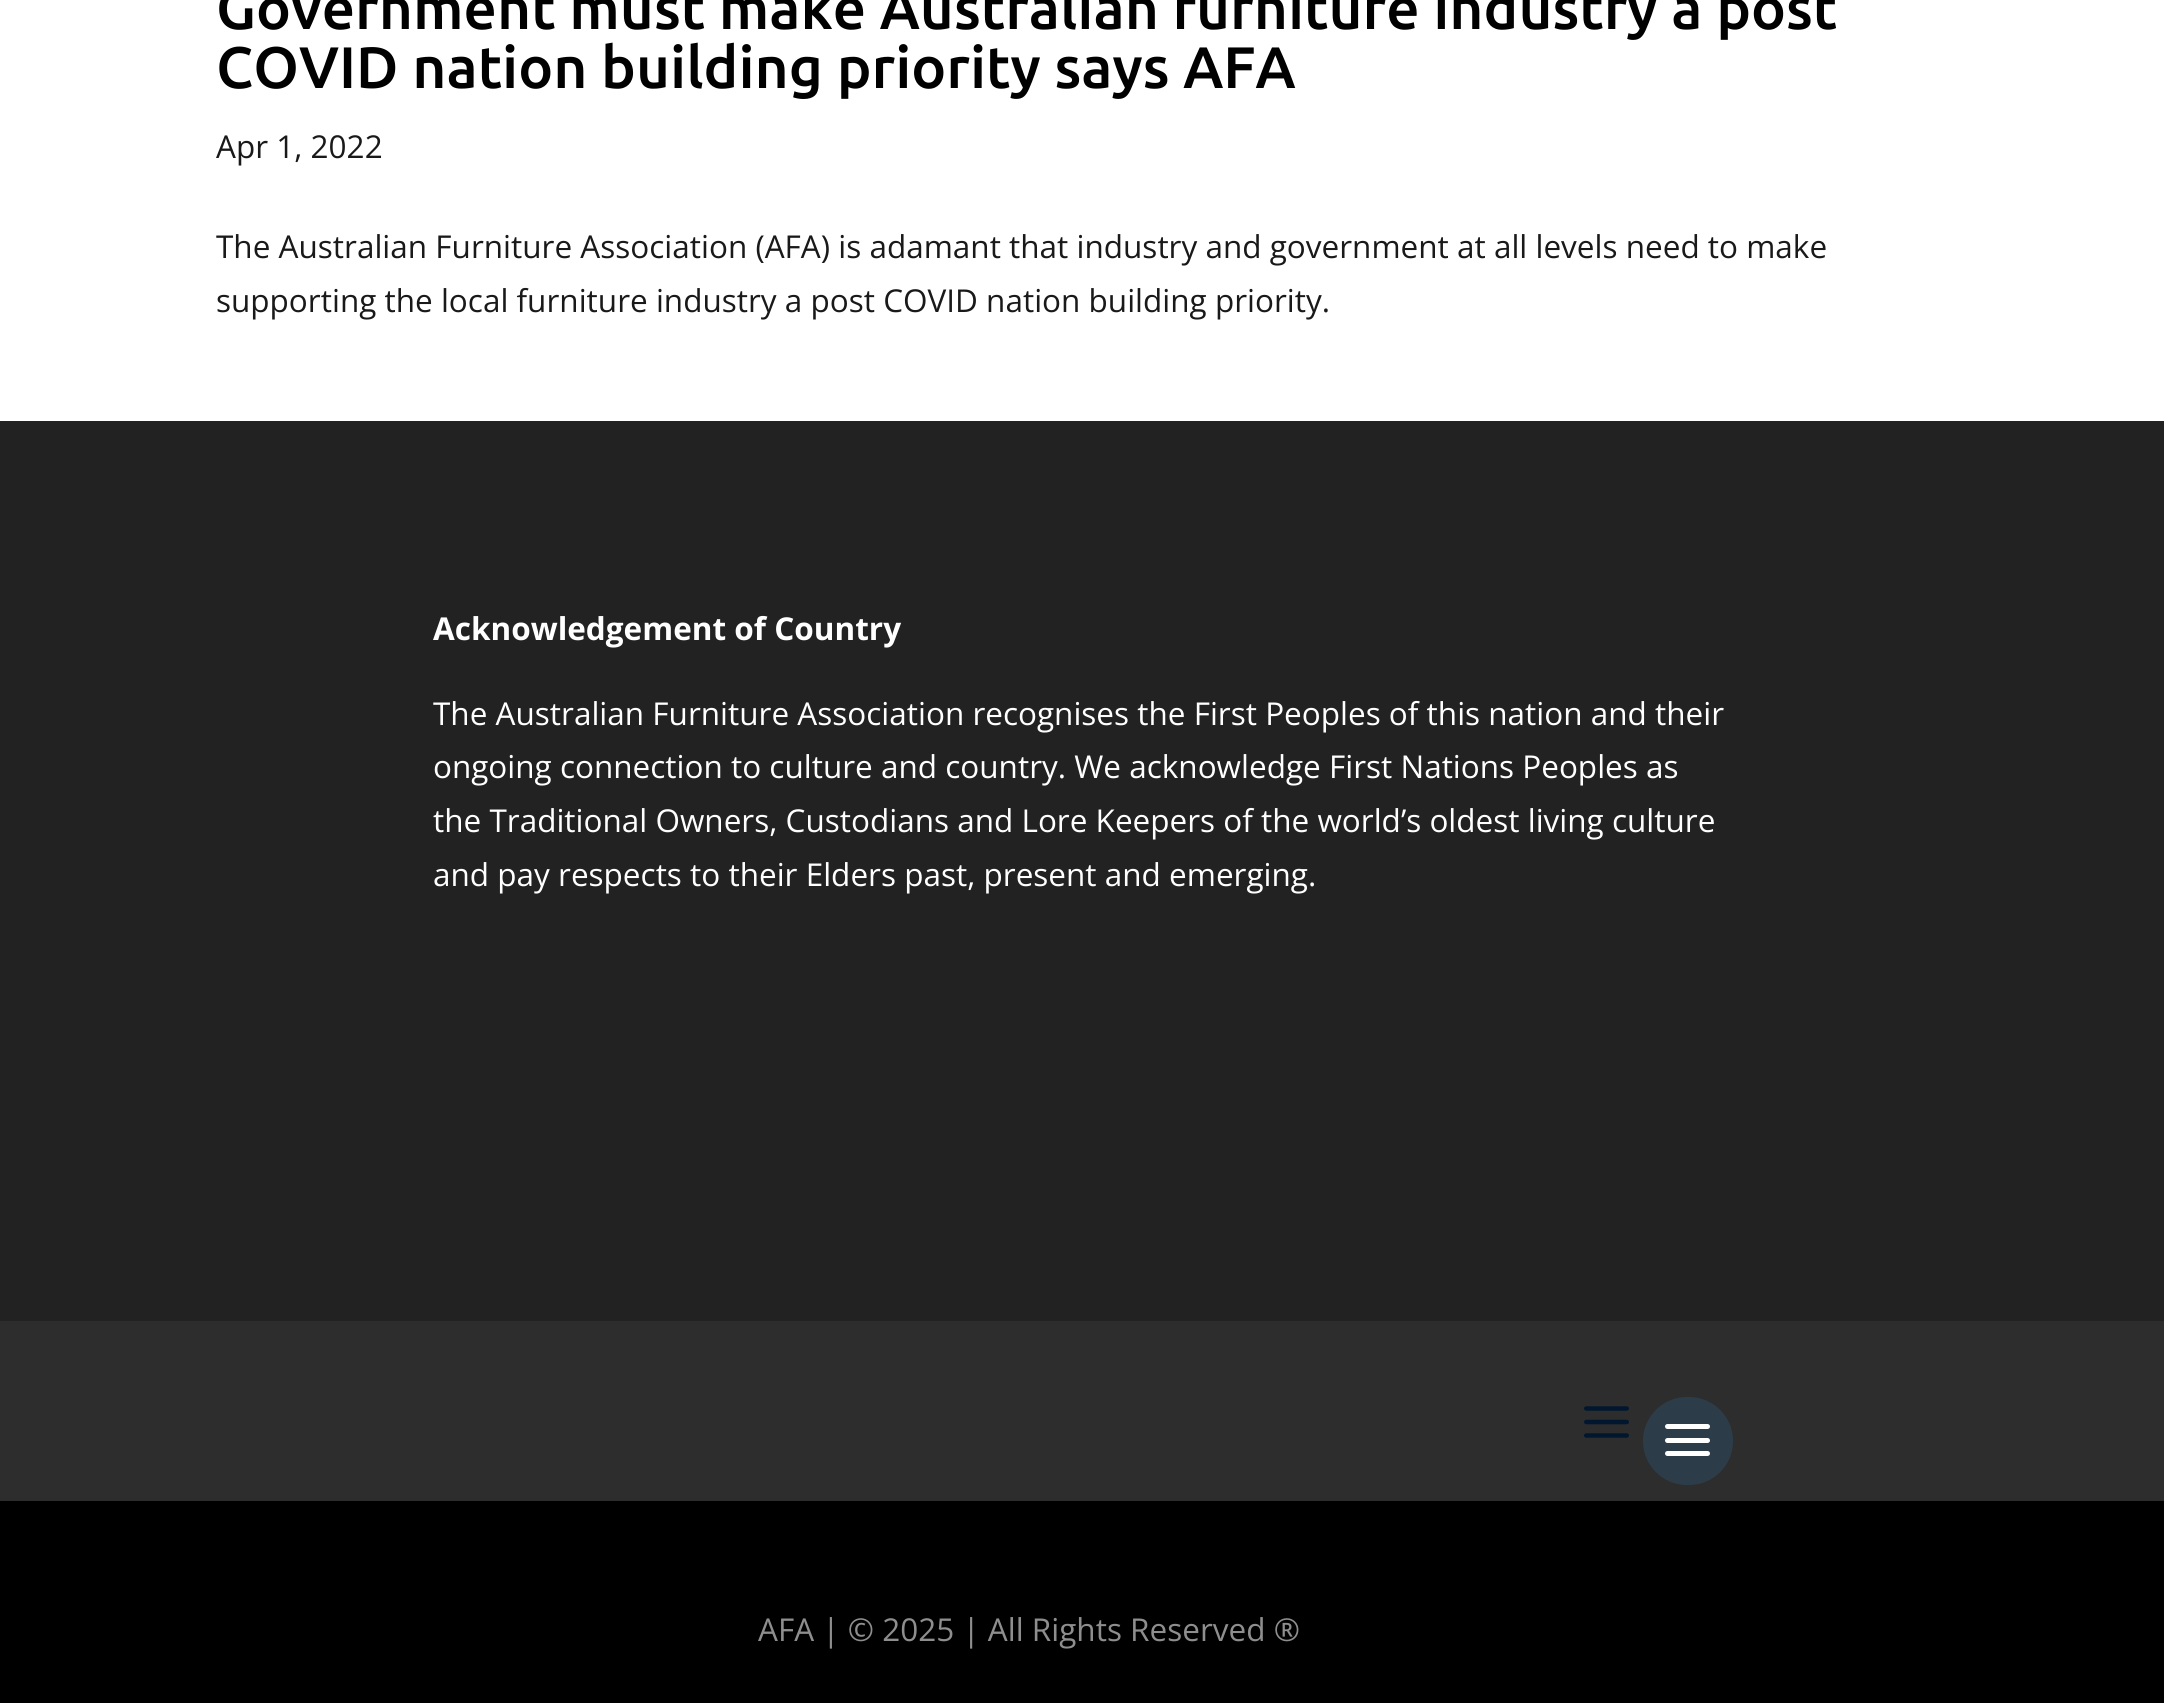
#include <cairo.h>
#include <math.h>
#include <stddef.h>


static void set_color(cairo_t *cr, unsigned color) {
    cairo_set_source_rgb(cr, (color >> 16) / 255.0, (color >> 8 & 255) / 255.0, (color & 255) / 255.0);
}

static void draw_text(cairo_t *cr, double x, double y, const char *s, const char *family, double size, int italic, int bold, unsigned color) {
    cairo_select_font_face(cr, family, italic ? CAIRO_FONT_SLANT_ITALIC : CAIRO_FONT_SLANT_NORMAL,
        bold ? CAIRO_FONT_WEIGHT_BOLD : CAIRO_FONT_WEIGHT_NORMAL);
    cairo_set_font_size(cr, size);
    set_color(cr, color);
    cairo_move_to(cr, x, y);
    cairo_show_text(cr, s);
}

static void fill_rect(cairo_t *cr, double x, double y, double w, double h, unsigned color) {
    set_color(cr, color);
    cairo_rectangle(cr, x, y, w, h);
    cairo_fill(cr);
}

static void rounded_rect(cairo_t *cr, double x, double y, double w, double h, double r) {
    cairo_new_sub_path(cr);
    cairo_arc(cr, x + w - r, y + h - r, r, 0, M_PI / 2);
    cairo_arc(cr, x + r, y + h - r, r, M_PI / 2, M_PI);
    cairo_arc(cr, x + r, y + r, r, M_PI, 1.5 * M_PI);
    cairo_arc(cr, x + w - r, y + r, r, 1.5 * M_PI, 2 * M_PI);
    cairo_close_path(cr);
}

static void draw_image(cairo_t *cr, const char *path, double x, double y, double w, double h) {
    cairo_surface_t *image = cairo_image_surface_create_from_png(path);
    cairo_save(cr);
    cairo_set_source_surface(cr, image, x, y);
    cairo_rectangle(cr, x, y, w, h);
    cairo_fill(cr);
    cairo_restore(cr);
    cairo_surface_destroy(image);
}

int main(void) {
    cairo_surface_t *surface = cairo_image_surface_create(CAIRO_FORMAT_RGB24, 2164, 1703);
    cairo_t *cr = cairo_create(surface);
    cairo_font_options_t *options = cairo_font_options_create();
    cairo_font_options_set_hint_metrics(options, CAIRO_HINT_METRICS_OFF);
    cairo_font_options_set_hint_style(options, CAIRO_HINT_STYLE_NONE);
    cairo_set_font_options(cr, options);
    cairo_set_miter_limit(cr, 4);
    set_color(cr, 0xFFFFFF);
    cairo_paint(cr);
    draw_text(cr, 216, 29, "Government must make Australian furniture industry a post", "Ubuntu Medium", 58.5, 0, 0, 0x000000);
    draw_text(cr, 216, 88, "COVID nation building priority says AFA", "Ubuntu Medium", 58.5, 0, 0, 0x000000);
    draw_text(cr, 216, 158, "Apr 1, 2022", "Open Sans", 31.5, 0, 0, 0x191919);
    draw_text(cr, 216, 258, "The Australian Furniture Association (AFA) is adamant that industry and government at all levels need to make", "Open Sans", 31.5, 0, 0, 0x191919);
    draw_text(cr, 216, 312, "supporting the local furniture industry a post COVID nation building priority.", "Open Sans", 31.5, 0, 0, 0x191919);
    fill_rect(cr, 0, 421, 2164, 900, 0x222222);
    draw_text(cr, 433, 640, "Acknowledgement of Country", "Open Sans", 31.5, 0, 1, 0xFFFFFF);
    draw_text(cr, 433, 725, "The Australian Furniture Association recognises the First Peoples of this nation and their", "Open Sans", 31.5, 0, 0, 0xFFFFFF);
    draw_text(cr, 433, 778, "ongoing connection to culture and country. We acknowledge First Nations Peoples as", "Open Sans", 31.5, 0, 0, 0xFFFFFF);
    draw_text(cr, 433, 832, "the Traditional Owners, Custodians and Lore Keepers of the world’s oldest living culture", "Open Sans", 31.5, 0, 0, 0xFFFFFF);
    draw_text(cr, 433, 886, "and pay respects to their Elders past, present and emerging.", "Open Sans", 31.5, 0, 0, 0xFFFFFF);
    fill_rect(cr, 0, 1321, 2164, 180, 0x2D2D2D);
    draw_image(cr, "assets/img1.png", 1584, 1406, 45, 32);
    set_color(cr, 0x2C3D49);
    rounded_rect(cr, 1643, 1397, 90, 88, 44);
    cairo_fill(cr);
    set_color(cr, 0xFFFFFF);
    rounded_rect(cr, 1665, 1424, 45, 5, 2.5);
    cairo_fill(cr);
    rounded_rect(cr, 1665, 1438, 45, 5, 2.5);
    cairo_fill(cr);
    rounded_rect(cr, 1665, 1451, 45, 5, 2.5);
    cairo_fill(cr);
    fill_rect(cr, 0, 1501, 2164, 202, 0x000000);
    draw_text(cr, 758, 1641, "AFA | © 2025 | All Rights Reserved ®", "Open Sans", 31.5, 0, 0, 0x8E8E8E);
    cairo_surface_write_to_png(surface, "output.png");
    cairo_font_options_destroy(options);
    cairo_destroy(cr);
    cairo_surface_destroy(surface);
    return 0;
}
